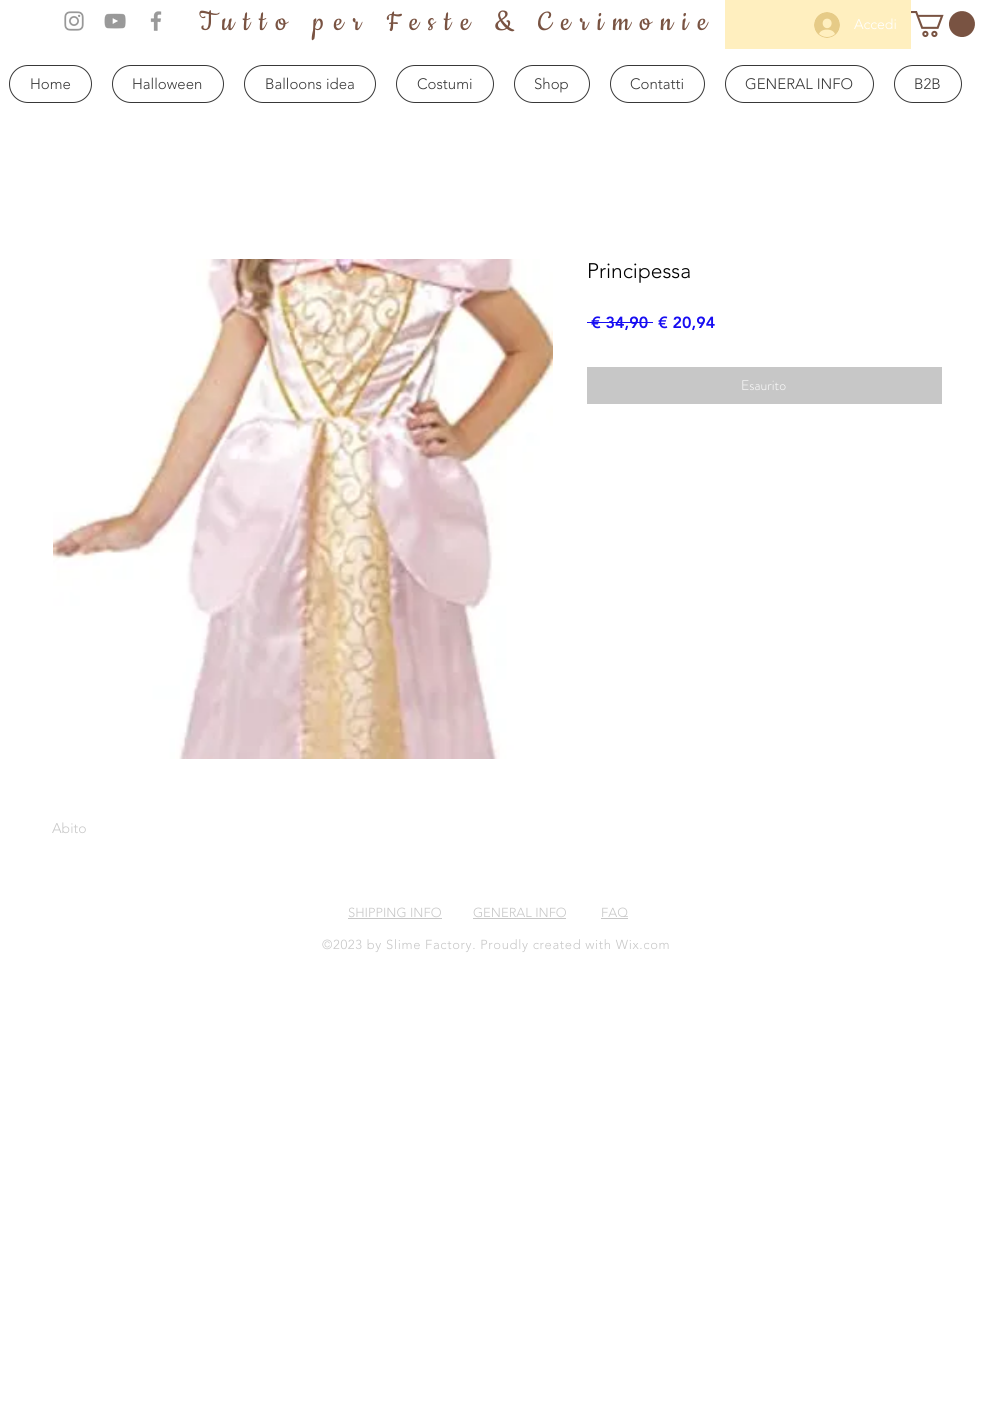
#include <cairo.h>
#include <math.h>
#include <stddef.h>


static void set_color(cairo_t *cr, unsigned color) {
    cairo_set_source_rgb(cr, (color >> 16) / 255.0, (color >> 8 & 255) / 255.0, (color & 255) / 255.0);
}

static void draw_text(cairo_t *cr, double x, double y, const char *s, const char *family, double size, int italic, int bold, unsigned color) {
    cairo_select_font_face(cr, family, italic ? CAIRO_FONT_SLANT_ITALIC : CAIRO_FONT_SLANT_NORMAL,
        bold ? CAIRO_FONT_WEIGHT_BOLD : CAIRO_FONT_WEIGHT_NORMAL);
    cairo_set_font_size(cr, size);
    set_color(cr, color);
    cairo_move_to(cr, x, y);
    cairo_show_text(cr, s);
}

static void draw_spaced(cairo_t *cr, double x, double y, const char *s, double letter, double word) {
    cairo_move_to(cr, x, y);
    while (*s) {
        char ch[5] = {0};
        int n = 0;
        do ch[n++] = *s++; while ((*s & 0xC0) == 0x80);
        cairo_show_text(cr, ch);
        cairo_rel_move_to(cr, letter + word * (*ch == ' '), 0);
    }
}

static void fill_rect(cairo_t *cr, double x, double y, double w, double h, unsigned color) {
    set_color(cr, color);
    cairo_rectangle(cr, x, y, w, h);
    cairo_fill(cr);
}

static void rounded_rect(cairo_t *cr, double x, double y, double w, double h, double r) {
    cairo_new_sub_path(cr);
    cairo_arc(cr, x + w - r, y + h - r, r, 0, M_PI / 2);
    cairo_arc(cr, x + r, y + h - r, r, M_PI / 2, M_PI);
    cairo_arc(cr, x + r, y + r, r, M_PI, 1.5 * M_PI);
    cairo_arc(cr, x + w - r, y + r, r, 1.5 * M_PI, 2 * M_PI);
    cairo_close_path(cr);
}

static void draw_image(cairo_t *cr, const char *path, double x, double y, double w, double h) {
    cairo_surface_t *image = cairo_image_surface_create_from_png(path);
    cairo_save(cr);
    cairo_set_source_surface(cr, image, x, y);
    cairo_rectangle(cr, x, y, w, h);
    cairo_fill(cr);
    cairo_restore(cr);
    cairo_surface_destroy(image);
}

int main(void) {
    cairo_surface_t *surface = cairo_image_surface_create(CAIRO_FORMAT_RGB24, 993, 1425);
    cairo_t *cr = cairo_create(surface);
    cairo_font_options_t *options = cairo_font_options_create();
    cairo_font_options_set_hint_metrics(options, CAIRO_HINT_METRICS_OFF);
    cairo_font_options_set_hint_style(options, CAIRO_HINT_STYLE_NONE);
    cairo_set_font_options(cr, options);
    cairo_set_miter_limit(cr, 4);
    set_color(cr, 0xFFFFFF);
    cairo_paint(cr);
    draw_image(cr, "assets/img1.png", 64, 11, 20, 20);
    draw_image(cr, "assets/img2.png", 104, 13, 22, 16);
    draw_image(cr, "assets/img3.png", 150, 11, 12, 20);
    cairo_select_font_face(cr, "Cookie", CAIRO_FONT_SLANT_NORMAL, CAIRO_FONT_WEIGHT_NORMAL);
    cairo_set_font_size(cr, 32);
    set_color(cr, 0x795342);
    draw_spaced(cr, 199, 30, "Tutto per Feste & Cerimonie", 9.6, 0);
    fill_rect(cr, 725, 0, 186, 49, 0xFFEFBF);
    draw_image(cr, "assets/img4.png", 814, 12, 26, 26);
    draw_text(cr, 854, 29, "Accedi", "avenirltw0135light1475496 Light", 14, 0, 0, 0xFFFFFF);
    draw_image(cr, "assets/img5.png", 911, 11, 64, 27);
    rounded_rect(cr, 9.5, 65.5, 82, 37, 18.5);
    set_color(cr, 0x383838);
    cairo_set_line_width(cr, 1);
    cairo_stroke(cr);
    draw_text(cr, 30, 89, "Home", "avenirltw0135light1475496 Light", 15, 0, 0, 0x383838);
    rounded_rect(cr, 112.5, 65.5, 111, 37, 18.5);
    cairo_stroke(cr);
    draw_text(cr, 132, 89, "Halloween", "avenirltw0135light1475496 Light", 15, 0, 0, 0x383838);
    rounded_rect(cr, 244.5, 65.5, 131, 37, 18.5);
    cairo_stroke(cr);
    draw_text(cr, 265, 89, "Balloons idea", "avenirltw0135light1475496 Light", 15, 0, 0, 0x383838);
    rounded_rect(cr, 396.5, 65.5, 97, 37, 18.5);
    cairo_stroke(cr);
    draw_text(cr, 417, 89, "Costumi", "avenirltw0135light1475496 Light", 15, 0, 0, 0x383838);
    rounded_rect(cr, 514.5, 65.5, 75, 37, 18.5);
    cairo_stroke(cr);
    draw_text(cr, 534, 89, "Shop", "avenirltw0135light1475496 Light", 15, 0, 0, 0x383838);
    rounded_rect(cr, 610.5, 65.5, 94, 37, 18.5);
    cairo_stroke(cr);
    draw_text(cr, 630, 89, "Contatti", "avenirltw0135light1475496 Light", 15, 0, 0, 0x383838);
    rounded_rect(cr, 725.5, 65.5, 148, 37, 18.5);
    cairo_stroke(cr);
    draw_text(cr, 745, 89, "GENERAL INFO", "avenirltw0135light1475496 Light", 15, 0, 0, 0x383838);
    rounded_rect(cr, 894.5, 65.5, 67, 37, 18.5);
    cairo_stroke(cr);
    draw_text(cr, 914, 89, "B2B", "avenirltw0135light1475496 Light", 15, 0, 0, 0x383838);
    draw_text(cr, 587, 278, "Principessa", "avenirltw0135light1475496 Light", 21, 0, 0, 0x000000);
    draw_text(cr, 591, 328, "€ 34,90", "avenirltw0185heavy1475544 Black", 16, 0, 0, 0x170DF2);
    fill_rect(cr, 587, 322, 66, 1, 0x170DF2);
    draw_text(cr, 658, 328, "€ 20,94", "avenirltw0185heavy1475544 Black", 16, 0, 0, 0x170DF2);
    fill_rect(cr, 587, 367, 355, 37, 0xC7C7C7);
    draw_text(cr, 741, 390, "Esaurito", "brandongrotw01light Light", 14, 0, 0, 0xFFFFFF);
    draw_image(cr, "assets/img6.png", 53, 259, 500, 500);
    draw_text(cr, 52, 833, "Abito", "avenirltw0135light1475496 Light", 14, 0, 0, 0xC7C7C7);
    draw_text(cr, 348, 917, "SHIPPING INFO", "avenirltw0135light1475496 Light", 13, 0, 0, 0xC7C7C7);
    fill_rect(cr, 348, 918, 94, 1, 0xC7C7C7);
    draw_text(cr, 473, 917, "GENERAL INFO", "avenirltw0135light1475496 Light", 13, 0, 0, 0xC7C7C7);
    fill_rect(cr, 473, 918, 93, 1, 0xC7C7C7);
    draw_text(cr, 601, 917, "FAQ", "avenirltw0135light1475496 Light", 13, 0, 0, 0xC7C7C7);
    fill_rect(cr, 601, 918, 27, 1, 0xC7C7C7);
    draw_spaced(cr, 322, 949, "©2023 by Slime Factory. Proudly created with Wix.com", 0.65, 0);
    cairo_surface_write_to_png(surface, "output.png");
    cairo_font_options_destroy(options);
    cairo_destroy(cr);
    cairo_surface_destroy(surface);
    return 0;
}
